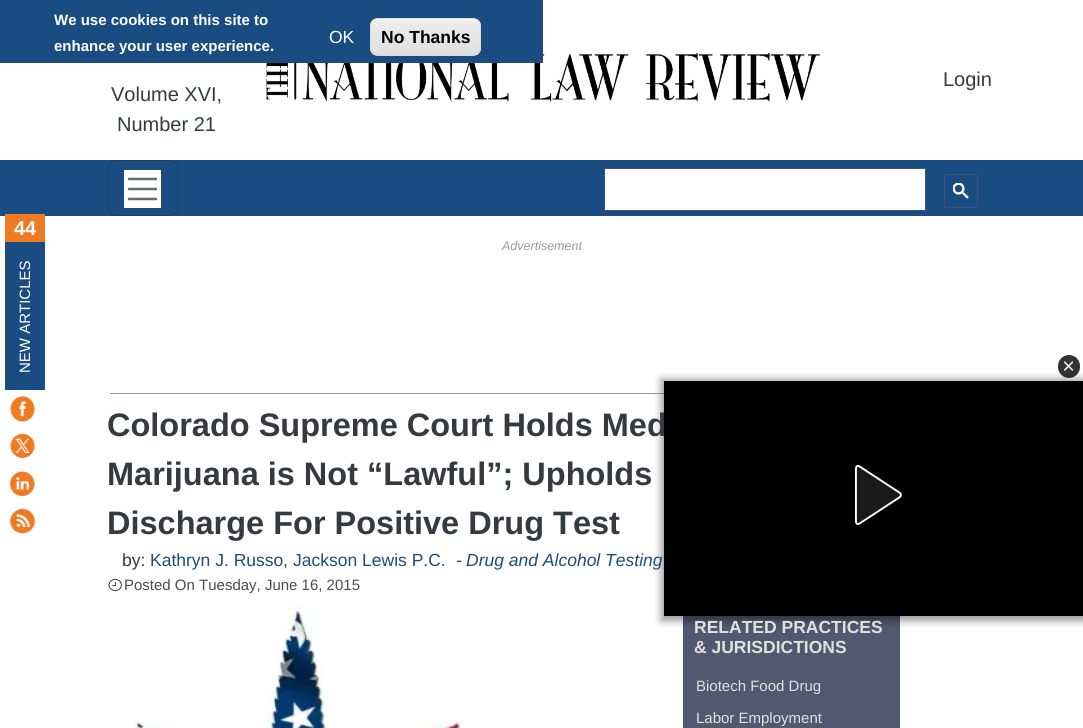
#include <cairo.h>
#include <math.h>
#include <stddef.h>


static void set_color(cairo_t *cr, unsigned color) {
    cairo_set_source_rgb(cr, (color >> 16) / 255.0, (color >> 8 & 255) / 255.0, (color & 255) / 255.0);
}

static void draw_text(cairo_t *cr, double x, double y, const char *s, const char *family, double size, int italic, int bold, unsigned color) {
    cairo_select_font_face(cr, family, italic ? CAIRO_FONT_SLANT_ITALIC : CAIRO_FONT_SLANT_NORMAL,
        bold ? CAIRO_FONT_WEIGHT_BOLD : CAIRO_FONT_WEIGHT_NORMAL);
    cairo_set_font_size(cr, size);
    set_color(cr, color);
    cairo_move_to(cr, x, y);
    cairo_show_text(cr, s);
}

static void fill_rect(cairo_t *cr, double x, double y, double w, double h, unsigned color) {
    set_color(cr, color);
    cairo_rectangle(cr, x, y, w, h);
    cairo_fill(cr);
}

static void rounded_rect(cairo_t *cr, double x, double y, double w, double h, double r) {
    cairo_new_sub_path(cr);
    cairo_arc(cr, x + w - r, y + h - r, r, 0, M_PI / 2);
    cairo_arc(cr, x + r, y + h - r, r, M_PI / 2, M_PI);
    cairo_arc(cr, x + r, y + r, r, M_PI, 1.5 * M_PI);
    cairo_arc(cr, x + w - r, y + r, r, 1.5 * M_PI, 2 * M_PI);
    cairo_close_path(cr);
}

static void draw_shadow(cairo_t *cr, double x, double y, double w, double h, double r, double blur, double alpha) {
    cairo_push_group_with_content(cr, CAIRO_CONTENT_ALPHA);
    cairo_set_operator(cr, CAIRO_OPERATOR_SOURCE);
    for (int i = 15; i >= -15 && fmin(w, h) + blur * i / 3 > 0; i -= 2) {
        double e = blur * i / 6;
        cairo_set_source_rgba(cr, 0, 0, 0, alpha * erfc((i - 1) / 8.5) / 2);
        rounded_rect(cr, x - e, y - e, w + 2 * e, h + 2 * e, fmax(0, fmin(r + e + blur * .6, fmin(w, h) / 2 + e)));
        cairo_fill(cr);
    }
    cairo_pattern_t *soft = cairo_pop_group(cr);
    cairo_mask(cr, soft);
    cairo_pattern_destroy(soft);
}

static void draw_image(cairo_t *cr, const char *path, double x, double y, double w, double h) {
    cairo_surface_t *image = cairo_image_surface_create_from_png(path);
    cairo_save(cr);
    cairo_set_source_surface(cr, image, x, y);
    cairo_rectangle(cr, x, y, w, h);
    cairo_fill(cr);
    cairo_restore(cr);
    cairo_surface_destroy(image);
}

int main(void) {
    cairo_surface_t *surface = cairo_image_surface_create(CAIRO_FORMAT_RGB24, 1083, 728);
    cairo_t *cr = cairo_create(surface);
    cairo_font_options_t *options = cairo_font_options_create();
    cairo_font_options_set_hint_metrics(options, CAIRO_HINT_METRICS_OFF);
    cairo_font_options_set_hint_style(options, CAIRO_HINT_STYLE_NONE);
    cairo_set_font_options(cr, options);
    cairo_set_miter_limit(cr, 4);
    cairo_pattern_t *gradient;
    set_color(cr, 0xFFFFFF);
    cairo_paint(cr);
    draw_image(cr, "assets/img1.png", 266, 53, 554, 49);
    fill_rect(cr, 0, 0, 543, 63, 0x194C81);
    draw_text(cr, 54, 25, "We use cookies on this site to", "Liberation Sans", 15, 0, 1, 0xFFFFFF);
    draw_text(cr, 54, 51, "enhance your user experience.", "Liberation Sans", 15, 0, 1, 0xFFFFFF);
    draw_text(cr, 329, 43, "OK", "Liberation Sans", 17.5, 0, 0, 0xFFFFFF);
    cairo_save(cr);
    rounded_rect(cr, 370, 18, 111, 38, 8);
    cairo_clip(cr);
    gradient = cairo_pattern_create_linear(426, 19, 426, 55);
    cairo_pattern_add_color_stop_rgba(gradient, 0.05, 0.929, 0.929, 0.929, 1);
    cairo_pattern_add_color_stop_rgba(gradient, 1, 0.875, 0.875, 0.875, 1);
    cairo_set_source(cr, gradient);
    cairo_pattern_destroy(gradient);
    cairo_rectangle(cr, 370, 19, 111, 36);
    cairo_fill(cr);
    cairo_restore(cr);
    cairo_new_path(cr);
    cairo_move_to(cr, 378, 20);
    cairo_line_to(cr, 474, 20);
    cairo_curve_to(cr, 477, 20, 480, 23, 480, 26);
    cairo_curve_to(cr, 480, 15, 464, 19, 458, 19);
    cairo_line_to(cr, 393, 19);
    cairo_curve_to(cr, 387, 19, 371, 15, 371, 26);
    cairo_curve_to(cr, 371, 23, 374, 20, 378, 20);
    cairo_close_path(cr);
    cairo_fill(cr);
    rounded_rect(cr, 370.5, 18.5, 110, 37, 7.5);
    set_color(cr, 0xDCDCDC);
    cairo_set_line_width(cr, 1);
    cairo_stroke(cr);
    draw_text(cr, 381, 43, "No Thanks", "Liberation Sans", 17.5, 0, 1, 0x000000);
    draw_text(cr, 943, 86, "Login", "Liberation Sans", 20, 0, 0, 0x343A40);
    draw_text(cr, 111, 101, "Volume XVI,", "Liberation Sans", 20, 0, 0, 0x343A40);
    draw_text(cr, 117, 131, "Number 21", "Liberation Sans", 20, 0, 0, 0x343A40);
    fill_rect(cr, 0, 160, 1083, 56, 0x194C81);
    rounded_rect(cr, 108.5, 160.5, 69, 55, 7.5);
    set_color(cr, 0x15416E);
    cairo_stroke(cr);
    fill_rect(cr, 124, 170, 37, 38, 0xFFFFFF);
    cairo_new_path(cr);
    cairo_move_to(cr, 129, 179);
    cairo_line_to(cr, 156, 179);
    cairo_move_to(cr, 129, 189);
    cairo_line_to(cr, 156, 189);
    cairo_move_to(cr, 129, 199);
    cairo_line_to(cr, 156, 199);
    set_color(cr, 0x676B70);
    cairo_set_line_width(cr, 2.5);
    cairo_set_line_cap(cr, CAIRO_LINE_CAP_ROUND);
    cairo_stroke(cr);
    set_color(cr, 0xFFFFFF);
    cairo_rectangle(cr, 604.5, 168.5, 321, 42);
    cairo_fill_preserve(cr);
    set_color(cr, 0x444F7C);
    cairo_set_line_width(cr, 1);
    cairo_set_line_cap(cr, CAIRO_LINE_CAP_BUTT);
    cairo_stroke(cr);
    rounded_rect(cr, 944.5, 174.5, 33, 33, 2);
    cairo_stroke(cr);
    draw_image(cr, "assets/img2.png", 953, 183, 16, 16);
    fill_rect(cr, 5, 214, 40, 28, 0xF07A22);
    draw_text(cr, 14, 235, "44", "Liberation Sans", 20, 0, 1, 0xFFFFFF);
    fill_rect(cr, 5, 242, 40, 148, 0x194C81);
    cairo_save(cr);
    cairo_translate(cr, 30, 373);
    cairo_rotate(cr, -90 * M_PI / 180);
    draw_text(cr, 0, 0, "NEW ARTICLES", "Liberation Sans", 15, 0, 0, 0xFFFFFF);
    cairo_restore(cr);
    draw_image(cr, "assets/img3.png", 9, 396, 26, 26);
    draw_image(cr, "assets/img4.png", 9, 433, 26, 25);
    draw_image(cr, "assets/img5.png", 9, 471, 26, 26);
    draw_image(cr, "assets/img6.png", 9, 508, 27, 26);
    fill_rect(cr, 110, 393, 554, 1, 0x999999);
    draw_text(cr, 502, 250, "Advertisement", "Liberation Sans", 12.5, 1, 0, 0x999999);
    set_color(cr, 0x333333);
    rounded_rect(cr, 1058, 355, 22, 23, 11);
    cairo_fill(cr);
    draw_image(cr, "assets/img7.png", 1064, 361, 10, 10);
    fill_rect(cr, 683, 616, 217, 112, 0x50596F);
    set_color(cr, 0x000000);
    draw_shadow(cr, 661, 379, 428, 242, 0, 4, 0.4);
    draw_text(cr, 107, 436, "Colorado Supreme Court Holds Med", "Liberation Sans", 32.5, 0, 1, 0x343A40);
    fill_rect(cr, 664, 381, 419, 235, 0x000000);
    draw_image(cr, "assets/img8.png", 855, 465, 47, 60);
    draw_text(cr, 107, 485, "Marijuana is Not “Lawful”; Upholds", "Liberation Sans", 32.5, 0, 1, 0x343A40);
    draw_text(cr, 107, 534, "Discharge For Positive Drug Test", "Liberation Sans", 32.5, 0, 1, 0x343A40);
    draw_text(cr, 122, 566, "by:", "Liberation Sans", 17.5, 0, 0, 0x343A40);
    draw_text(cr, 150, 566, "Kathryn J. Russo", "Liberation Sans", 17.5, 0, 0, 0x194C81);
    draw_text(cr, 293, 566, "Jackson Lewis P.C.", "Liberation Sans", 17.5, 0, 0, 0x194C81);
    draw_text(cr, 456, 566, "-", "Liberation Sans", 17.5, 1, 0, 0x343A40);
    draw_text(cr, 466, 566, "Drug and Alcohol Testing", "Liberation Sans", 17.5, 1, 0, 0x194C81);
    draw_text(cr, 283, 566, ",", "Liberation Sans", 17.5, 0, 0, 0x343A40);
    draw_image(cr, "assets/img9.png", 108, 578, 14, 14);
    draw_text(cr, 124, 590, "Posted On Tuesday, June 16, 2015", "Liberation Sans", 15, 0, 0, 0x4C4C4C);
    draw_image(cr, "assets/img10.png", 134, 605, 329, 123);
    draw_text(cr, 694, 633, "RELATED PRACTICES", "Liberation Sans", 17.5, 0, 1, 0xE1E0DC);
    draw_text(cr, 694, 653, "& JURISDICTIONS", "Liberation Sans", 17.5, 0, 1, 0xE1E0DC);
    draw_text(cr, 696, 691, "Biotech Food Drug", "Liberation Sans", 15, 0, 0, 0xE1E0DC);
    draw_text(cr, 696, 723, "Labor Employment", "Liberation Sans", 15, 0, 0, 0xE1E0DC);
    cairo_surface_write_to_png(surface, "output.png");
    cairo_font_options_destroy(options);
    cairo_destroy(cr);
    cairo_surface_destroy(surface);
    return 0;
}
